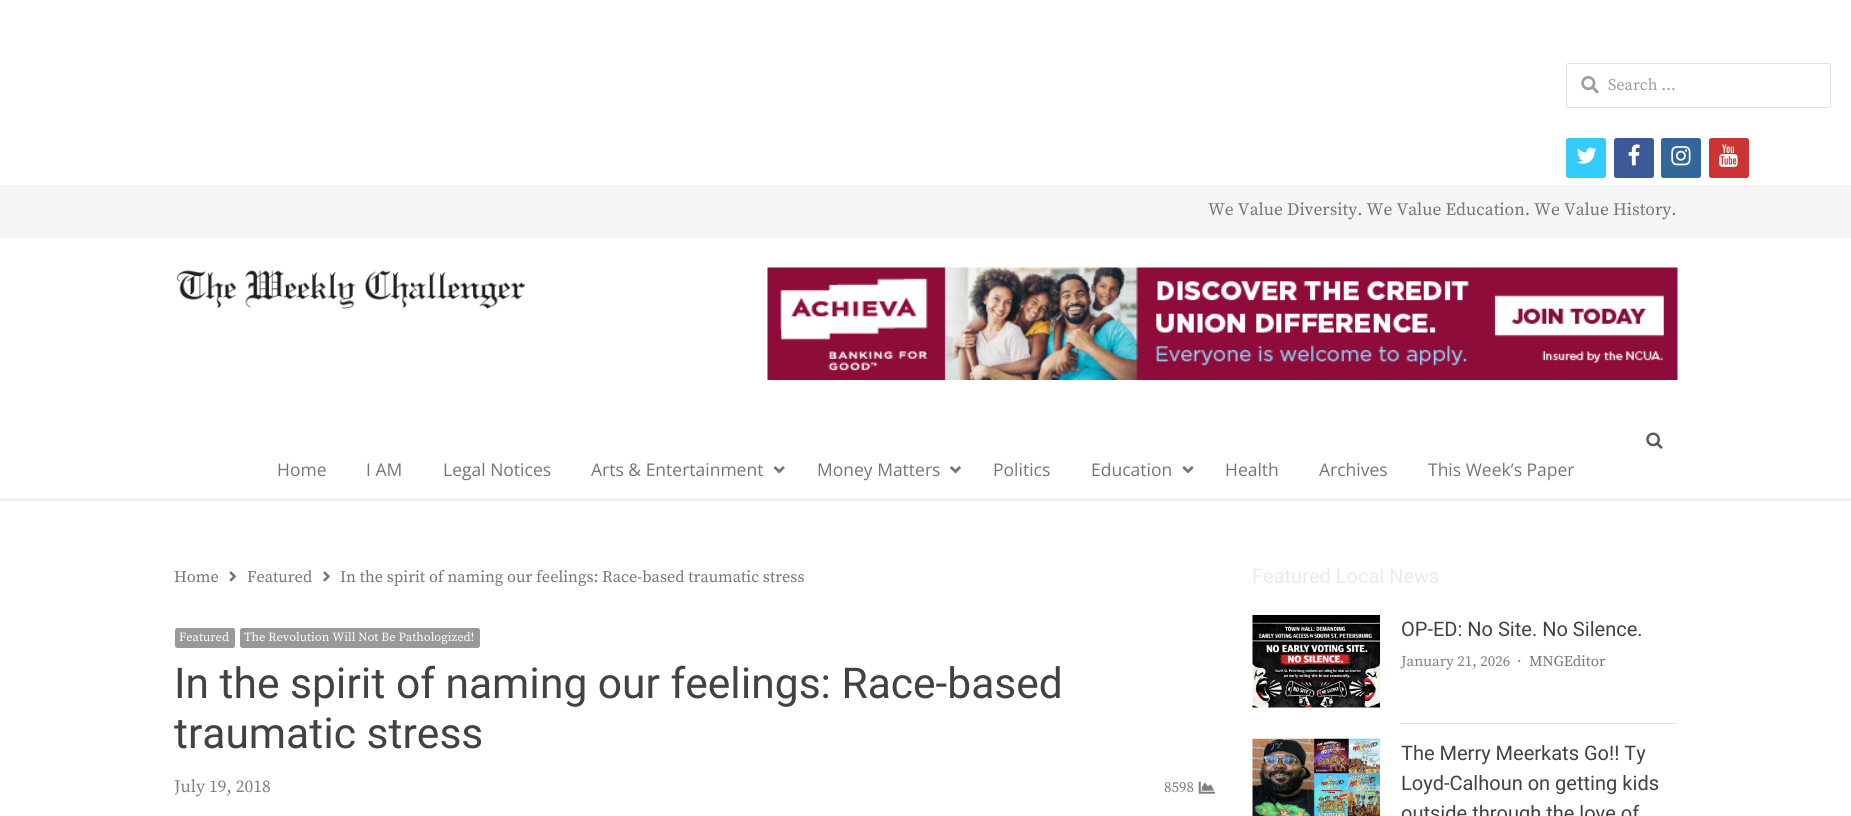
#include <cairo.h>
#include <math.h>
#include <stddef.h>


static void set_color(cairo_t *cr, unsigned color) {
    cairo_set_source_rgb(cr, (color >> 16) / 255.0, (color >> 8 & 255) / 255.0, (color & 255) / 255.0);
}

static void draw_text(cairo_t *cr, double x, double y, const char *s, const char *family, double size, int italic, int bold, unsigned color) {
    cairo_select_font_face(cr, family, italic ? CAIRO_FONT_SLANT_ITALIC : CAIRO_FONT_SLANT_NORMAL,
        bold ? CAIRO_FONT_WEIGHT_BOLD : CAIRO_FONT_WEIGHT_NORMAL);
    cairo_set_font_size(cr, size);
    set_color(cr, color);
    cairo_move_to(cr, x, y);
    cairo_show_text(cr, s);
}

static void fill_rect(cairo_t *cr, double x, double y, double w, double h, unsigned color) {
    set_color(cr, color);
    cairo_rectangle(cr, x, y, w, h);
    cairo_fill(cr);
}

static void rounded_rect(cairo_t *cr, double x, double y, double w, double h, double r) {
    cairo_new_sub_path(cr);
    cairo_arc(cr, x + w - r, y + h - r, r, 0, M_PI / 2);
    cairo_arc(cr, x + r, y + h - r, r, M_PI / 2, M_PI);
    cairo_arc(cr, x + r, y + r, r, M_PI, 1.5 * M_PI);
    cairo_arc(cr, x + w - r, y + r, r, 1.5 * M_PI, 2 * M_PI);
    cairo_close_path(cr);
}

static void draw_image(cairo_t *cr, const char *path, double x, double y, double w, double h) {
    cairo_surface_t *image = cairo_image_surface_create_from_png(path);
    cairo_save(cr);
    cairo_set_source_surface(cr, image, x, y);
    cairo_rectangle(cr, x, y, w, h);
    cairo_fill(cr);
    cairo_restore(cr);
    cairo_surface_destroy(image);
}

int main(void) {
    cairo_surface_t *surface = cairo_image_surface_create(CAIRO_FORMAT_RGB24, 1851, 816);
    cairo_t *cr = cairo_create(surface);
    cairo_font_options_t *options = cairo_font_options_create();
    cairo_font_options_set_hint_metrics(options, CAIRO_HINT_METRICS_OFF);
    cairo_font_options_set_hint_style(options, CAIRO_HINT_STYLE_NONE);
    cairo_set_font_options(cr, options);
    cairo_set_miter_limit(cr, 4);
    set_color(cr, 0xFFFFFF);
    cairo_paint(cr);
    rounded_rect(cr, 1566.5, 63.5, 264, 44, 2);
    set_color(cr, 0xE0E0E0);
    cairo_set_line_width(cr, 1);
    cairo_stroke(cr);
    draw_image(cr, "assets/img1.png", 1581, 76, 18, 18);
    draw_text(cr, 1608, 90, "Search …", "Source Serif Pro", 16.25, 0, 0, 0x9E9E9E);
    set_color(cr, 0x33CCFF);
    rounded_rect(cr, 1566, 138, 40, 40, 2.5);
    cairo_fill(cr);
    draw_image(cr, "assets/img2.png", 1577, 147, 20, 17);
    set_color(cr, 0x3C5A98);
    rounded_rect(cr, 1614, 138, 40, 40, 2.5);
    cairo_fill(cr);
    draw_image(cr, "assets/img3.png", 1628, 144, 12, 22);
    set_color(cr, 0x336699);
    rounded_rect(cr, 1661, 138, 40, 40, 2.5);
    cairo_fill(cr);
    draw_image(cr, "assets/img4.png", 1671, 146, 20, 20);
    set_color(cr, 0xCC3333);
    rounded_rect(cr, 1709, 138, 40, 40, 2.5);
    cairo_fill(cr);
    draw_image(cr, "assets/img5.png", 1719, 144, 19, 23);
    fill_rect(cr, 0, 185, 1851, 53, 0xF5F5F5);
    draw_text(cr, 1208, 215, "We Value Diversity. We Value Education. We Value History.", "Source Serif Pro", 17.5, 0, 0, 0x757575);
    draw_image(cr, "assets/img6.png", 176, 270, 349, 39);
    draw_image(cr, "assets/img7.png", 767, 267, 911, 113);
    fill_rect(cr, 0, 498, 1851, 3, 0xF0F0F0);
    draw_image(cr, "assets/img8.png", 1646, 432, 17, 17);
    draw_text(cr, 277, 476, "Home", "Open Sans", 17.5, 0, 0, 0x757575);
    draw_text(cr, 366, 476, "I AM", "Open Sans", 17.5, 0, 0, 0x757575);
    draw_text(cr, 443, 476, "Legal Notices", "Open Sans", 17.5, 0, 0, 0x757575);
    draw_text(cr, 591, 476, "Arts & Entertainment", "Open Sans", 17.5, 0, 0, 0x757575);
    draw_image(cr, "assets/img9.png", 773, 466, 12, 8);
    draw_text(cr, 817, 476, "Money Matters", "Open Sans", 17.5, 0, 0, 0x757575);
    draw_image(cr, "assets/img10.png", 950, 466, 11, 8);
    draw_text(cr, 993, 476, "Politics", "Open Sans", 17.5, 0, 0, 0x757575);
    draw_text(cr, 1091, 476, "Education", "Open Sans", 17.5, 0, 0, 0x757575);
    draw_image(cr, "assets/img11.png", 1182, 466, 12, 8);
    draw_text(cr, 1225, 476, "Health", "Open Sans", 17.5, 0, 0, 0x757575);
    draw_text(cr, 1319, 476, "Archives", "Open Sans", 17.5, 0, 0, 0x757575);
    draw_text(cr, 1428, 476, "This Week’s Paper", "Open Sans", 17.5, 0, 0, 0x757575);
    draw_text(cr, 174, 582, "Home", "Source Serif Pro", 16.25, 0, 0, 0x757575);
    draw_image(cr, "assets/img12.png", 229, 571, 7, 11);
    draw_text(cr, 247, 582, "Featured", "Source Serif Pro", 16.25, 0, 0, 0x757575);
    draw_image(cr, "assets/img13.png", 323, 571, 7, 11);
    draw_text(cr, 340, 582, "In the spirit of naming our feelings: Race-based traumatic stress", "Source Serif Pro", 16.25, 0, 0, 0x757575);
    set_color(cr, 0x999999);
    rounded_rect(cr, 175, 628, 60, 20, 2.5);
    cairo_fill(cr);
    draw_text(cr, 179, 641, "Featured", "Source Serif Pro", 12.5, 0, 0, 0xFFFFFF);
    set_color(cr, 0x999999);
    rounded_rect(cr, 240, 628, 240, 20, 2.5);
    cairo_fill(cr);
    draw_text(cr, 244, 641, "The Revolution Will Not Be Pathologized!", "Source Serif Pro", 12.5, 0, 0, 0xFFFFFF);
    draw_text(cr, 174, 698, "In the spirit of naming our feelings: Race-based", "Heebo", 42.5, 0, 0, 0x424242);
    draw_text(cr, 174, 748, "traumatic stress", "Heebo", 42.5, 0, 0, 0x424242);
    cairo_save(cr);
    cairo_rectangle(cr, 175, 775, 616, 25);
    cairo_clip(cr);
    draw_text(cr, 174, 792, "July 19, 2018", "Source Serif Pro", 17.5, 0, 0, 0x808080);
    cairo_restore(cr);
    draw_text(cr, 1164, 792, "8598", "Source Serif Pro", 15, 0, 0, 0x808080);
    draw_image(cr, "assets/img14.png", 1198, 781, 17, 13);
    draw_text(cr, 1252, 583, "Featured Local News", "Heebo", 20, 0, 0, 0xEAEAEA);
    draw_image(cr, "assets/img15.png", 1252, 615, 128, 93);
    draw_text(cr, 1401, 636, "OP-ED: No Site. No Silence.", "Heebo", 20, 0, 0, 0x424242);
    draw_text(cr, 1401, 666, "January 21, 2026", "Source Serif Pro", 15, 0, 0, 0x808080);
    draw_text(cr, 1517, 666, "·", "Source Serif Pro", 15, 0, 0, 0x808080);
    draw_text(cr, 1529, 666, "MNGEditor", "Source Serif Pro", 15, 0, 0, 0x757575);
    fill_rect(cr, 1400, 723, 276, 1, 0xE0E0E0);
    draw_image(cr, "assets/img16.png", 1252, 738, 128, 78);
    draw_text(cr, 1401, 760, "The Merry Meerkats Go!! Ty", "Heebo", 20, 0, 0, 0x424242);
    draw_text(cr, 1401, 790, "Loyd-Calhoun on getting kids", "Heebo", 20, 0, 0, 0x424242);
    draw_text(cr, 1401, 820, "outside through the love of", "Heebo", 20, 0, 0, 0x424242);
    cairo_surface_write_to_png(surface, "output.png");
    cairo_font_options_destroy(options);
    cairo_destroy(cr);
    cairo_surface_destroy(surface);
    return 0;
}
